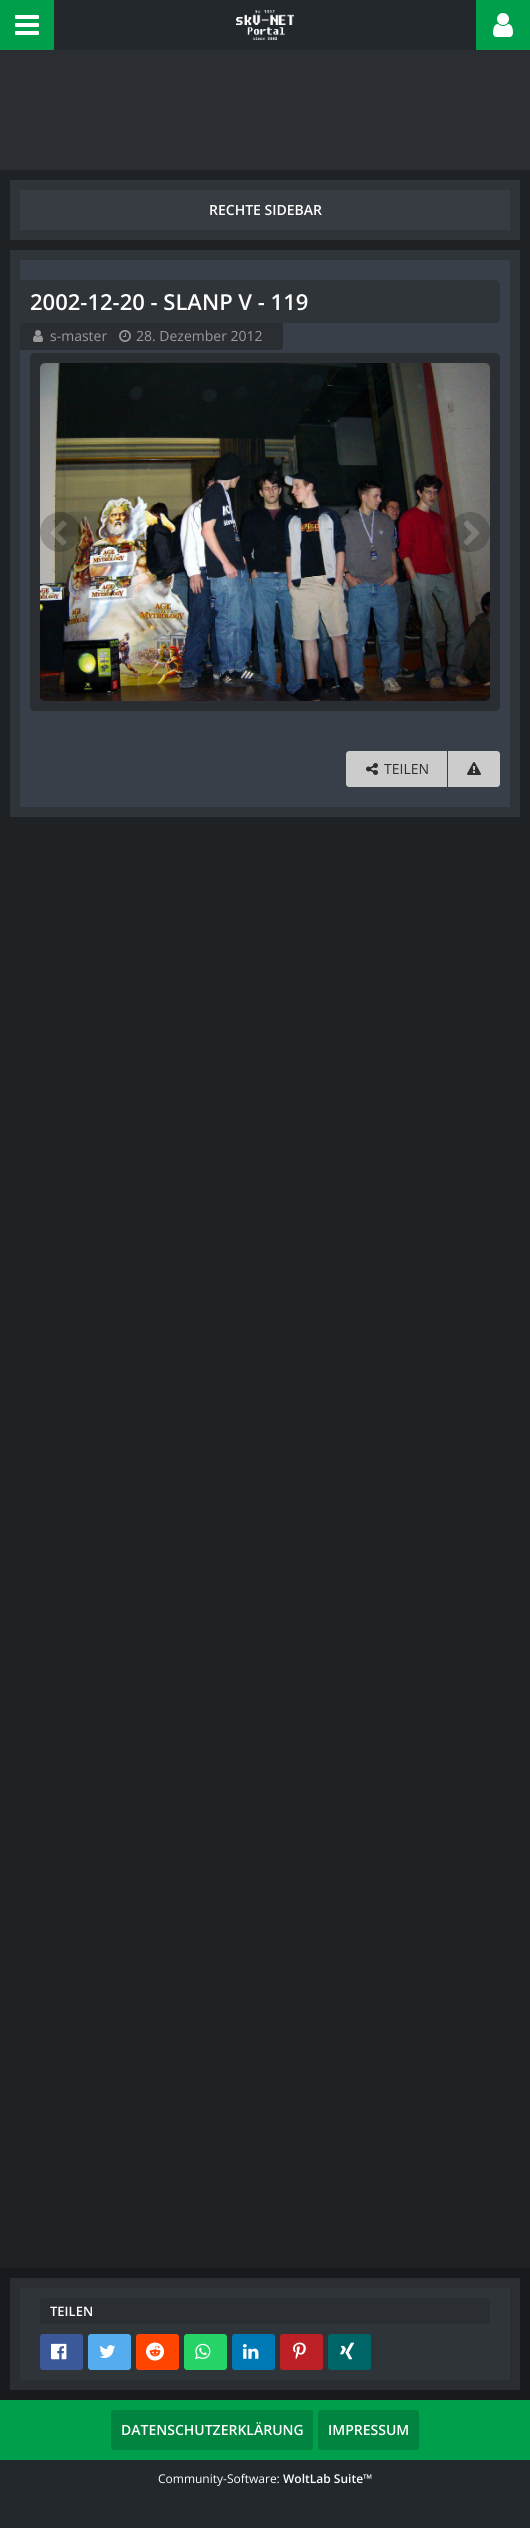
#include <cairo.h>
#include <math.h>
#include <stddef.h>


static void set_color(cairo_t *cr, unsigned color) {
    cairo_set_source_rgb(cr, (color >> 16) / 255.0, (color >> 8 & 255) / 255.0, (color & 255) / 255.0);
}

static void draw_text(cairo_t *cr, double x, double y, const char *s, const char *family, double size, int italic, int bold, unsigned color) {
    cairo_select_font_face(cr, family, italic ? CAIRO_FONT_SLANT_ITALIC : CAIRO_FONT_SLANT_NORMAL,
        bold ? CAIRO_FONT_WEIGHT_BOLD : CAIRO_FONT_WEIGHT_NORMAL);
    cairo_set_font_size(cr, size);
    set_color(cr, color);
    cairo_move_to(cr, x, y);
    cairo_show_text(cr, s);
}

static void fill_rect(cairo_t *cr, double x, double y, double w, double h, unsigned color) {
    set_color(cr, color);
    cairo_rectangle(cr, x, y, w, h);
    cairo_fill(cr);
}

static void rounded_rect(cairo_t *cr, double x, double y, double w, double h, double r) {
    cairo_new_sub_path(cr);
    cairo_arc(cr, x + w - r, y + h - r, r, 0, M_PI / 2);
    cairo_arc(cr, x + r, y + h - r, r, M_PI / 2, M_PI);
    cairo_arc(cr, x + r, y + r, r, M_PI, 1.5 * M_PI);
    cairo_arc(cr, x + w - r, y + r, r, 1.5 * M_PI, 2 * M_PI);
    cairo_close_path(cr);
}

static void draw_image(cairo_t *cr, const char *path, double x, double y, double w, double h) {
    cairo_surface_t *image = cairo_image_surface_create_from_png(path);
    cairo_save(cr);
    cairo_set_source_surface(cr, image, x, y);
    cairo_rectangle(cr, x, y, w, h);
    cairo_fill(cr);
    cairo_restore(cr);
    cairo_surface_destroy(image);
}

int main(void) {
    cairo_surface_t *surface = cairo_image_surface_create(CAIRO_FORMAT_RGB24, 530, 2528);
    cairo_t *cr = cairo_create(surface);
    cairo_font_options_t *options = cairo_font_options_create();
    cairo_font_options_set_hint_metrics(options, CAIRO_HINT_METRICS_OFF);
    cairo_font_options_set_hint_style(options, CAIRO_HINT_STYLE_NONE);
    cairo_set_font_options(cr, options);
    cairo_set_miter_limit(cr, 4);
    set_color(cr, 0x1F2225);
    cairo_paint(cr);
    fill_rect(cr, 0, 50, 530, 120, 0x2A2E32);
    fill_rect(cr, 54, 0, 422, 50, 0x23282D);
    draw_image(cr, "assets/img1.png", 236, 10, 58, 30);
    fill_rect(cr, 476, 0, 54, 50, 0x009F4B);
    draw_image(cr, "assets/img2.png", 493, 13, 20, 24);
    fill_rect(cr, 0, 0, 54, 50, 0x009F4B);
    draw_image(cr, "assets/img3.png", 15, 15, 24, 20);
    set_color(cr, 0x383F48);
    cairo_rectangle(cr, 15, 185, 500, 50);
    cairo_fill_preserve(cr);
    set_color(cr, 0x2F3439);
    cairo_set_line_width(cr, 10);
    cairo_stroke(cr);
    set_color(cr, 0x363C42);
    rounded_rect(cr, 20, 190, 490, 40, 5);
    cairo_fill(cr);
    draw_text(cr, 209, 215, "RECHTE SIDEBAR", "Open Sans SemiBold", 14, 0, 0, 0xFFFFFF);
    set_color(cr, 0x383F48);
    cairo_rectangle(cr, 15, 255, 500, 557);
    cairo_fill_preserve(cr);
    set_color(cr, 0x2F3439);
    cairo_stroke(cr);
    cairo_new_path(cr);
    cairo_move_to(cr, 10, 280);
    cairo_line_to(cr, 495, 280);
    cairo_curve_to(cr, 498, 280, 500, 282, 500, 285);
    cairo_line_to(cr, 500, 318);
    cairo_curve_to(cr, 500, 321, 498, 323, 495, 323);
    cairo_line_to(cr, 10, 323);
    cairo_close_path(cr);
    cairo_fill(cr);
    draw_text(cr, 30, 310, "2002-12-20 - SLANP V - 119", "Open Sans SemiBold", 22, 0, 0, 0xFFFFFF);
    set_color(cr, 0x2A2E32);
    cairo_new_path(cr);
    cairo_move_to(cr, 20, 323);
    cairo_line_to(cr, 283, 323);
    cairo_line_to(cr, 283, 347);
    cairo_curve_to(cr, 283, 348.5, 281.5, 350, 280, 350);
    cairo_line_to(cr, 20, 350);
    cairo_close_path(cr);
    cairo_fill(cr);
    draw_image(cr, "assets/img4.png", 33, 330, 10, 12);
    draw_text(cr, 50, 341, "s-master", "Open Sans", 14, 0, 0, 0x999999);
    draw_image(cr, "assets/img5.png", 119, 330, 12, 12);
    draw_text(cr, 136, 341, "28. Dezember 2012", "Open Sans", 14, 0, 0, 0x999999);
    set_color(cr, 0x2A2E32);
    rounded_rect(cr, 30, 353, 470, 358, 5);
    cairo_fill(cr);
    draw_image(cr, "assets/img6.png", 40, 363, 450, 338);
    cairo_set_source_rgba(cr, 0, 0, 0, 0.2);
    cairo_arc(cr, 60, 532, 20, 0, 2 * M_PI);
    cairo_fill(cr);
    draw_image(cr, "assets/img7.png", 50, 520, 17, 26);
    cairo_arc(cr, 470, 532, 20, 0, 2 * M_PI);
    cairo_fill(cr);
    draw_image(cr, "assets/img8.png", 463, 520, 17, 26);
    set_color(cr, 0xCCCCCC);
    cairo_new_path(cr);
    cairo_move_to(cr, 349, 751);
    cairo_line_to(cr, 447, 751);
    cairo_line_to(cr, 447, 787);
    cairo_line_to(cr, 349, 787);
    cairo_curve_to(cr, 347.5, 787, 346, 785.5, 346, 784);
    cairo_line_to(cr, 346, 754);
    cairo_curve_to(cr, 346, 752.5, 347.5, 751, 349, 751);
    cairo_close_path(cr);
    cairo_fill(cr);
    draw_image(cr, "assets/img9.png", 366, 763, 12, 12);
    draw_text(cr, 384, 774, "TEILEN", "Open Sans", 14, 0, 0, 0x2D2D2D);
    set_color(cr, 0xCCCCCC);
    cairo_new_path(cr);
    cairo_move_to(cr, 448, 751);
    cairo_line_to(cr, 497, 751);
    cairo_curve_to(cr, 498.5, 751, 500, 752.5, 500, 754);
    cairo_line_to(cr, 500, 784);
    cairo_curve_to(cr, 500, 785.5, 498.5, 787, 497, 787);
    cairo_line_to(cr, 448, 787);
    cairo_close_path(cr);
    cairo_fill(cr);
    draw_image(cr, "assets/img10.png", 467, 762, 14, 13);
    fill_rect(cr, 0, 2268, 530, 132, 0x181B1E);
    set_color(cr, 0x2F3439);
    cairo_rectangle(cr, 15, 2283, 500, 102);
    cairo_fill_preserve(cr);
    set_color(cr, 0x2A2E32);
    cairo_stroke(cr);
    rounded_rect(cr, 40, 2298, 450, 26, 3);
    cairo_fill(cr);
    draw_text(cr, 50, 2316, "TEILEN", "Open Sans SemiBold", 13, 0, 0, 0xFFFFFF);
    set_color(cr, 0x3B5999);
    rounded_rect(cr, 40, 2334, 43, 36, 3);
    cairo_fill(cr);
    draw_image(cr, "assets/img11.png", 51, 2343, 16, 17);
    set_color(cr, 0x55ACEE);
    rounded_rect(cr, 88, 2334, 43, 36, 3);
    cairo_fill(cr);
    draw_image(cr, "assets/img12.png", 99, 2345, 17, 13);
    set_color(cr, 0xFF4500);
    rounded_rect(cr, 136, 2334, 43, 36, 3);
    cairo_fill(cr);
    draw_image(cr, "assets/img13.png", 146, 2342, 18, 19);
    set_color(cr, 0x25D366);
    rounded_rect(cr, 184, 2334, 43, 36, 3);
    cairo_fill(cr);
    draw_image(cr, "assets/img14.png", 195, 2343, 16, 17);
    set_color(cr, 0x007AB6);
    rounded_rect(cr, 232, 2334, 43, 36, 3);
    cairo_fill(cr);
    draw_image(cr, "assets/img15.png", 243, 2344, 16, 15);
    set_color(cr, 0xBD2125);
    rounded_rect(cr, 280, 2334, 43, 36, 3);
    cairo_fill(cr);
    draw_image(cr, "assets/img16.png", 293, 2342, 13, 18);
    set_color(cr, 0x006567);
    rounded_rect(cr, 328, 2334, 43, 36, 3);
    cairo_fill(cr);
    draw_image(cr, "assets/img17.png", 340, 2342, 15, 18);
    fill_rect(cr, 0, 2400, 530, 60, 0x009F4B);
    set_color(cr, 0x00843F);
    rounded_rect(cr, 111, 2410, 202, 40, 3);
    cairo_fill(cr);
    draw_text(cr, 121, 2435, "DATENSCHUTZERKLÄRUNG", "Open Sans SemiBold", 14, 0, 0, 0xFFFFFF);
    set_color(cr, 0x00843F);
    rounded_rect(cr, 318, 2410, 101, 40, 3);
    cairo_fill(cr);
    draw_text(cr, 328, 2435, "IMPRESSUM", "Open Sans SemiBold", 14, 0, 0, 0xFFFFFF);
    fill_rect(cr, 0, 2460, 530, 68, 0x23282D);
    draw_text(cr, 158, 2483, "Community-Software:", "Open Sans", 12, 0, 0, 0xFFFFFF);
    draw_text(cr, 283, 2483, "WoltLab Suite™", "Open Sans SemiBold", 12, 0, 0, 0xFFFFFF);
    cairo_surface_write_to_png(surface, "output.png");
    cairo_font_options_destroy(options);
    cairo_destroy(cr);
    cairo_surface_destroy(surface);
    return 0;
}
